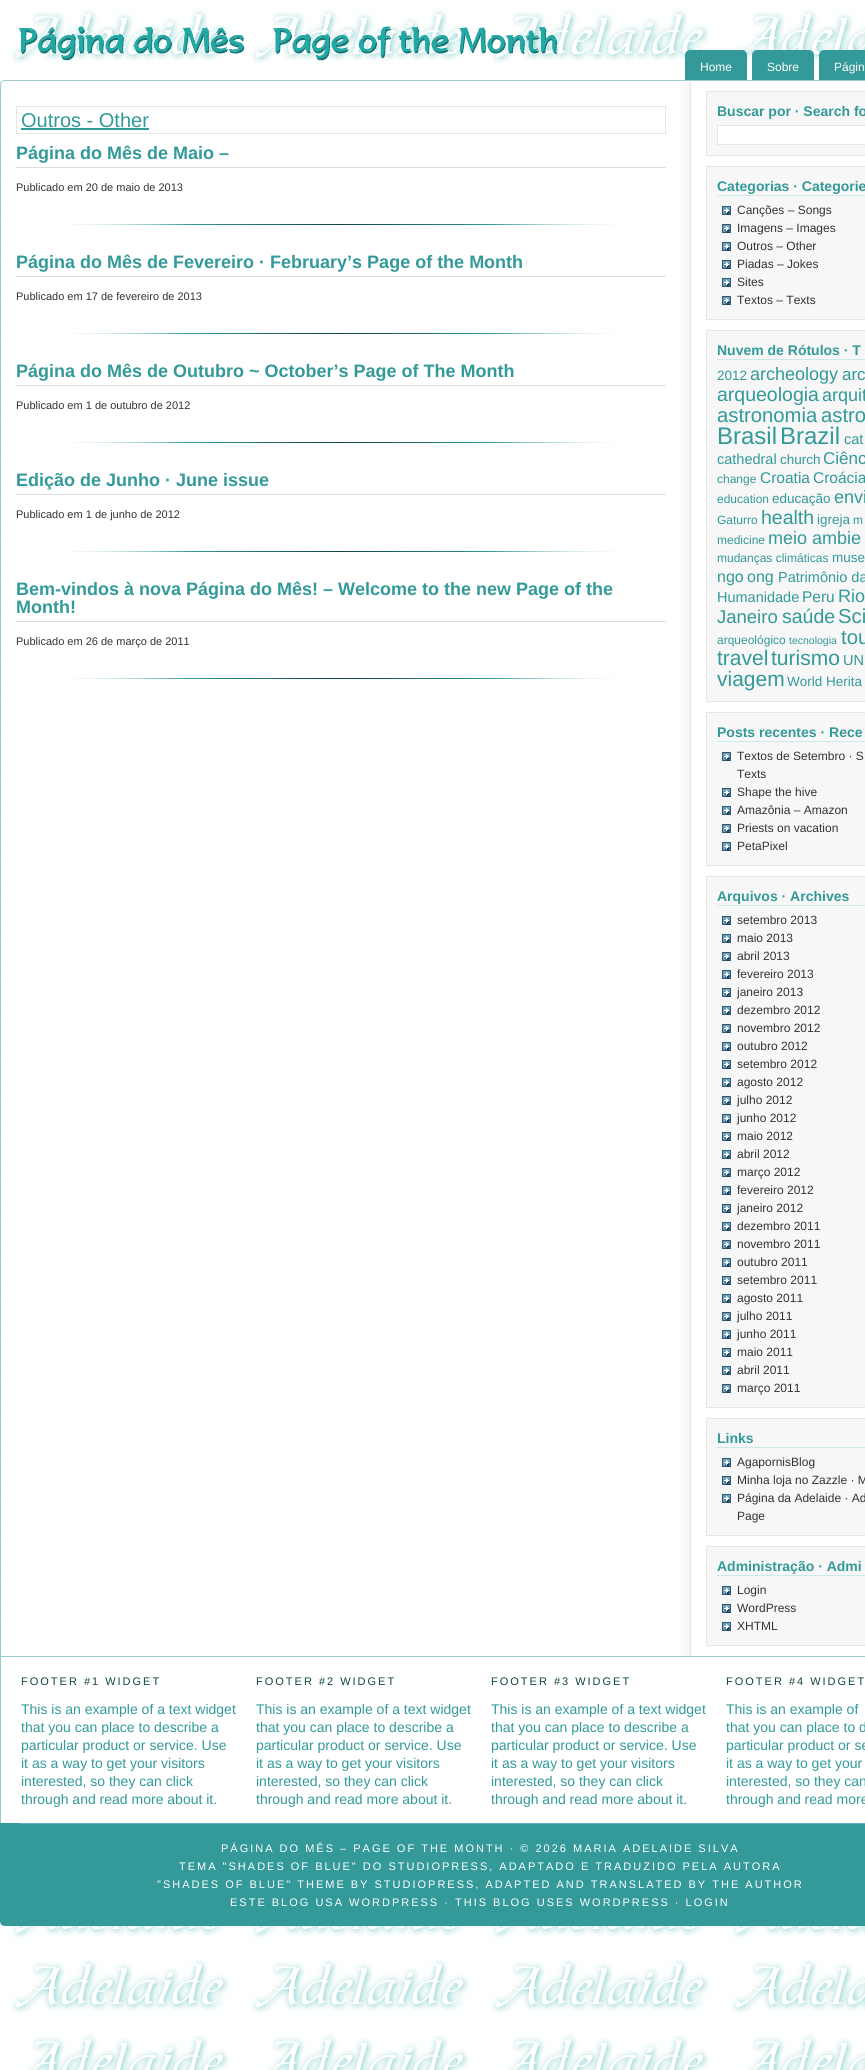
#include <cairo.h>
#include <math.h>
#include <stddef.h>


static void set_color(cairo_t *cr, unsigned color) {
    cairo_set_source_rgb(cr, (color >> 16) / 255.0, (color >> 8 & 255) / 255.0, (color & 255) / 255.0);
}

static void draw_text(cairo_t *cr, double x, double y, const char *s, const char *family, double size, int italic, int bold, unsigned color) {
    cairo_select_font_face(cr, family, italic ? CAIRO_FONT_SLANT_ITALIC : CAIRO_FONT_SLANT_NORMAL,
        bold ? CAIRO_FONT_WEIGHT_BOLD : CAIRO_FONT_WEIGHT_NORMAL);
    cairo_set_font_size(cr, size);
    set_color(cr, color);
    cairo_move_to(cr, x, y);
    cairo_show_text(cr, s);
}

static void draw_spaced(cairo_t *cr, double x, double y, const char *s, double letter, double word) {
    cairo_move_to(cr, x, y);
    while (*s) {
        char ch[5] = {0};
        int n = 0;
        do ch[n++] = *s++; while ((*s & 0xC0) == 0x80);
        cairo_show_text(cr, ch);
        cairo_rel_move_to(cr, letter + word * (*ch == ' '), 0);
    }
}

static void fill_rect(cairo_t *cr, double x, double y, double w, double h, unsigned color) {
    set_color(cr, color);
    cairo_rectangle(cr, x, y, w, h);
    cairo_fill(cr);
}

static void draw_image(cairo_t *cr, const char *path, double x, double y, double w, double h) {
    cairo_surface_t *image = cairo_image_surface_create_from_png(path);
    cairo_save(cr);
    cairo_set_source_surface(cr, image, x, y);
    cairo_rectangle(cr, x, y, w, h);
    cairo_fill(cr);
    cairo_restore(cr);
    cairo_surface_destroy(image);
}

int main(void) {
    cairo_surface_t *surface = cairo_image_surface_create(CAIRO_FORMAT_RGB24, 865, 2070);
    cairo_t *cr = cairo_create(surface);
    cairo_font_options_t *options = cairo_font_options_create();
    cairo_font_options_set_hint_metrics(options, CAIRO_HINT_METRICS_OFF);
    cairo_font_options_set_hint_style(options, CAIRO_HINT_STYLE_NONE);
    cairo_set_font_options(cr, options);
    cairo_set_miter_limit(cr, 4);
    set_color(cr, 0xFFFFFF);
    cairo_paint(cr);
    draw_image(cr, "assets/img1.png", 10, 5, 855, 2065);
    draw_image(cr, "assets/img2.png", 18, 26, 539, 35);
    draw_image(cr, "assets/img3.png", 685, 50, 62, 30);
    draw_text(cr, 700, 71, "Home", "Liberation Sans", 12, 0, 0, 0xFFFFFF);
    draw_image(cr, "assets/img4.png", 752, 50, 62, 30);
    draw_text(cr, 767, 71, "Sobre", "Liberation Sans", 12, 0, 0, 0xFFFFFF);
    draw_image(cr, "assets/img5.png", 819, 50, 46, 30);
    draw_text(cr, 834, 71, "Págin", "Liberation Sans", 12, 0, 0, 0xFFFFFF);
    cairo_new_path(cr);
    cairo_move_to(cr, 5, 80);
    cairo_line_to(cr, 865, 80);
    cairo_curve_to(cr, 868, 80, 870, 82, 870, 85);
    cairo_line_to(cr, 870, 1657);
    cairo_line_to(cr, 0, 1657);
    cairo_line_to(cr, 0, 85);
    cairo_curve_to(cr, 0, 82, 2, 80, 5, 80);
    cairo_close_path(cr);
    cairo_fill(cr);
    draw_image(cr, "assets/img6.png", 0, 80, 691, 1576);
    cairo_new_path(cr);
    cairo_move_to(cr, 5, 80.5);
    cairo_line_to(cr, 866, 80.5);
    cairo_curve_to(cr, 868.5, 80.5, 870.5, 82.5, 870.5, 85);
    cairo_line_to(cr, 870.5, 1656.5);
    cairo_line_to(cr, 0.5, 1656.5);
    cairo_line_to(cr, 0.5, 85);
    cairo_curve_to(cr, 0.5, 82.5, 2.5, 80.5, 5, 80.5);
    cairo_close_path(cr);
    set_color(cr, 0x99CCCC);
    cairo_set_line_width(cr, 1);
    cairo_stroke(cr);
    cairo_rectangle(cr, 16.5, 106.5, 649, 27);
    set_color(cr, 0xE6E6E6);
    cairo_stroke(cr);
    draw_text(cr, 21, 127, "Outros - Other", "Liberation Sans", 20, 0, 0, 0x339999);
    fill_rect(cr, 21, 128, 128, 2, 0x339999);
    fill_rect(cr, 16, 167, 650, 1, 0xDDDDDD);
    draw_text(cr, 16, 159, "Página do Mês de Maio –", "Liberation Sans", 18, 0, 1, 0x339999);
    draw_text(cr, 16, 191, "Publicado em 20 de maio de 2013", "Liberation Sans", 11, 0, 0, 0x333333);
    draw_image(cr, "assets/img7.png", 63, 224, 556, 1);
    fill_rect(cr, 16, 276, 650, 1, 0xDDDDDD);
    draw_text(cr, 16, 268, "Página do Mês de Fevereiro · February’s Page of the Month", "Liberation Sans", 18, 0, 1, 0x339999);
    draw_text(cr, 16, 300, "Publicado em 17 de fevereiro de 2013", "Liberation Sans", 11, 0, 0, 0x333333);
    draw_image(cr, "assets/img7.png", 63, 333, 556, 1);
    fill_rect(cr, 16, 385, 650, 1, 0xDDDDDD);
    draw_text(cr, 16, 377, "Página do Mês de Outubro ~ October’s Page of The Month", "Liberation Sans", 18, 0, 1, 0x339999);
    draw_text(cr, 16, 409, "Publicado em 1 de outubro de 2012", "Liberation Sans", 11, 0, 0, 0x333333);
    draw_image(cr, "assets/img7.png", 63, 442, 556, 1);
    fill_rect(cr, 16, 494, 650, 1, 0xDDDDDD);
    draw_text(cr, 16, 486, "Edição de Junho · June issue", "Liberation Sans", 18, 0, 1, 0x339999);
    draw_text(cr, 16, 518, "Publicado em 1 de junho de 2012", "Liberation Sans", 11, 0, 0, 0x333333);
    draw_image(cr, "assets/img7.png", 63, 551, 556, 1);
    fill_rect(cr, 16, 621, 650, 1, 0xDDDDDD);
    draw_text(cr, 16, 595, "Bem-vindos à nova Página do Mês! – Welcome to the new Page of the", "Liberation Sans", 18, 0, 1, 0x339999);
    draw_text(cr, 16, 613, "Month!", "Liberation Sans", 18, 0, 1, 0x339999);
    draw_text(cr, 16, 645, "Publicado em 26 de março de 2011", "Liberation Sans", 11, 0, 0, 0x333333);
    draw_image(cr, "assets/img7.png", 63, 678, 556, 1);
    set_color(cr, 0xF7F7F7);
    cairo_rectangle(cr, 706.5, 91.5, 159, 64);
    cairo_fill_preserve(cr);
    set_color(cr, 0xE6E6E6);
    cairo_stroke(cr);
    draw_text(cr, 717, 116, "Buscar por · Search fo", "Liberation Sans", 14, 0, 1, 0x339999);
    set_color(cr, 0xFFFFFF);
    cairo_rectangle(cr, 717.5, 125.5, 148, 19);
    cairo_fill_preserve(cr);
    set_color(cr, 0xE6E6E6);
    cairo_stroke(cr);
    set_color(cr, 0xF7F7F7);
    cairo_rectangle(cr, 706.5, 166.5, 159, 153);
    cairo_fill_preserve(cr);
    set_color(cr, 0xE6E6E6);
    cairo_stroke(cr);
    fill_rect(cr, 717, 195, 148, 1, 0xCCE8E8);
    draw_text(cr, 717, 191, "Categorias · Categorie", "Liberation Sans", 14, 0, 1, 0x339999);
    draw_image(cr, "assets/img8.png", 722, 206, 9, 9);
    draw_text(cr, 737, 214, "Canções – Songs", "Liberation Sans", 12, 0, 0, 0x333333);
    draw_image(cr, "assets/img8.png", 722, 224, 9, 9);
    draw_text(cr, 737, 232, "Imagens – Images", "Liberation Sans", 12, 0, 0, 0x333333);
    draw_image(cr, "assets/img8.png", 722, 242, 9, 9);
    draw_text(cr, 737, 250, "Outros – Other", "Liberation Sans", 12, 0, 0, 0x333333);
    draw_image(cr, "assets/img8.png", 722, 260, 9, 9);
    draw_text(cr, 737, 268, "Piadas – Jokes", "Liberation Sans", 12, 0, 0, 0x333333);
    draw_image(cr, "assets/img8.png", 722, 278, 9, 9);
    draw_text(cr, 737, 286, "Sites", "Liberation Sans", 12, 0, 0, 0x333333);
    draw_image(cr, "assets/img8.png", 722, 296, 9, 9);
    draw_text(cr, 737, 304, "Textos – Texts", "Liberation Sans", 12, 0, 0, 0x333333);
    set_color(cr, 0xF7F7F7);
    cairo_rectangle(cr, 706.5, 330.5, 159, 371);
    cairo_fill_preserve(cr);
    set_color(cr, 0xE6E6E6);
    cairo_stroke(cr);
    fill_rect(cr, 717, 359, 148, 1, 0xCCE8E8);
    draw_text(cr, 717, 355, "Nuvem de Rótulos · T", "Liberation Sans", 14, 0, 1, 0x339999);
    draw_text(cr, 717, 380, "2012", "Liberation Sans", 13.5, 0, 0, 0x339999);
    draw_text(cr, 750, 380, "archeology", "Liberation Sans", 18, 0, 0, 0x339999);
    draw_text(cr, 842, 380, "arc", "Liberation Sans", 17, 0, 0, 0x339999);
    draw_text(cr, 717, 401, "arqueologia", "Liberation Sans", 19.5, 0, 0, 0x339999);
    draw_text(cr, 822, 401, "arquit", "Liberation Sans", 18, 0, 0, 0x339999);
    draw_text(cr, 717, 422, "astronomia", "Liberation Sans", 20.25, 0, 0, 0x339999);
    draw_text(cr, 821, 422, "astro", "Liberation Sans", 20.25, 0, 0, 0x339999);
    draw_text(cr, 717, 444, "Brasil", "Liberation Sans", 24, 0, 0, 0x339999);
    draw_text(cr, 780, 444, "Brazil", "Liberation Sans", 24, 0, 0, 0x339999);
    draw_text(cr, 844, 444, "cat", "Liberation Sans", 14.5, 0, 0, 0x339999);
    draw_text(cr, 717, 464, "cathedral", "Liberation Sans", 14.5, 0, 0, 0x339999);
    draw_text(cr, 780, 464, "church", "Liberation Sans", 13.5, 0, 0, 0x339999);
    draw_text(cr, 823, 464, "Ciênc", "Liberation Sans", 17, 0, 0, 0x339999);
    draw_text(cr, 717, 483, "change", "Liberation Sans", 12, 0, 0, 0x339999);
    draw_text(cr, 760, 483, "Croatia", "Liberation Sans", 15.5, 0, 0, 0x339999);
    draw_text(cr, 813, 483, "Croácia", "Liberation Sans", 15.5, 0, 0, 0x339999);
    draw_text(cr, 717, 503, "education", "Liberation Sans", 12, 0, 0, 0x339999);
    draw_text(cr, 772, 503, "educação", "Liberation Sans", 13.5, 0, 0, 0x339999);
    draw_text(cr, 834, 503, "envi", "Liberation Sans", 18, 0, 0, 0x339999);
    draw_text(cr, 717, 524, "Gaturro", "Liberation Sans", 12, 0, 0, 0x339999);
    draw_text(cr, 761, 524, "health", "Liberation Sans", 19.5, 0, 0, 0x339999);
    draw_text(cr, 817, 524, "igreja", "Liberation Sans", 13.5, 0, 0, 0x339999);
    draw_text(cr, 853, 524, "m", "Liberation Sans", 12, 0, 0, 0x339999);
    draw_text(cr, 717, 544, "medicine", "Liberation Sans", 12, 0, 0, 0x339999);
    draw_text(cr, 768, 544, "meio ambie", "Liberation Sans", 18, 0, 0, 0x339999);
    draw_text(cr, 717, 562, "mudanças climáticas", "Liberation Sans", 12, 0, 0, 0x339999);
    draw_text(cr, 832, 562, "muse", "Liberation Sans", 13.5, 0, 0, 0x339999);
    draw_text(cr, 717, 582, "ngo", "Liberation Sans", 16, 0, 0, 0x339999);
    draw_text(cr, 747, 582, "ong", "Liberation Sans", 16, 0, 0, 0x339999);
    draw_text(cr, 778, 582, "Patrimônio da", "Liberation Sans", 14.5, 0, 0, 0x339999);
    draw_text(cr, 717, 602, "Humanidade", "Liberation Sans", 14.5, 0, 0, 0x339999);
    draw_text(cr, 802, 602, "Peru", "Liberation Sans", 15.5, 0, 0, 0x339999);
    draw_text(cr, 838, 602, "Rio", "Liberation Sans", 18, 0, 0, 0x339999);
    draw_text(cr, 717, 623, "Janeiro", "Liberation Sans", 18.5, 0, 0, 0x339999);
    draw_text(cr, 782, 623, "saúde", "Liberation Sans", 19.5, 0, 0, 0x339999);
    draw_text(cr, 838, 623, "Sci", "Liberation Sans", 20.25, 0, 0, 0x339999);
    draw_text(cr, 717, 644, "arqueológico", "Liberation Sans", 12, 0, 0, 0x339999);
    draw_text(cr, 789, 644, "tecnologia", "Liberation Sans", 10.5, 0, 0, 0x339999);
    draw_text(cr, 841, 644, "tou", "Liberation Sans", 20.25, 0, 0, 0x339999);
    draw_text(cr, 717, 665, "travel", "Liberation Sans", 21, 0, 0, 0x339999);
    draw_text(cr, 771, 665, "turismo", "Liberation Sans", 21, 0, 0, 0x339999);
    draw_text(cr, 843, 665, "UN", "Liberation Sans", 14.5, 0, 0, 0x339999);
    draw_text(cr, 717, 686, "viagem", "Liberation Sans", 21, 0, 0, 0x339999);
    draw_text(cr, 787, 686, "World Herita", "Liberation Sans", 13.5, 0, 0, 0x339999);
    set_color(cr, 0xF7F7F7);
    cairo_rectangle(cr, 706.5, 712.5, 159, 153);
    cairo_fill_preserve(cr);
    set_color(cr, 0xE6E6E6);
    cairo_stroke(cr);
    fill_rect(cr, 717, 741, 148, 1, 0xCCE8E8);
    draw_text(cr, 717, 737, "Posts recentes · Rece", "Liberation Sans", 14, 0, 1, 0x339999);
    draw_image(cr, "assets/img8.png", 722, 752, 9, 9);
    draw_text(cr, 737, 760, "Textos de Setembro · S", "Liberation Sans", 12, 0, 0, 0x333333);
    draw_text(cr, 737, 778, "Texts", "Liberation Sans", 12, 0, 0, 0x333333);
    draw_image(cr, "assets/img8.png", 722, 788, 9, 9);
    draw_text(cr, 737, 796, "Shape the hive", "Liberation Sans", 12, 0, 0, 0x333333);
    draw_image(cr, "assets/img8.png", 722, 806, 9, 9);
    draw_text(cr, 737, 814, "Amazônia – Amazon", "Liberation Sans", 12, 0, 0, 0x333333);
    draw_image(cr, "assets/img8.png", 722, 824, 9, 9);
    draw_text(cr, 737, 832, "Priests on vacation", "Liberation Sans", 12, 0, 0, 0x333333);
    draw_image(cr, "assets/img8.png", 722, 842, 9, 9);
    draw_text(cr, 737, 850, "PetaPixel", "Liberation Sans", 12, 0, 0, 0x333333);
    set_color(cr, 0xF7F7F7);
    cairo_rectangle(cr, 706.5, 876.5, 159, 531);
    cairo_fill_preserve(cr);
    set_color(cr, 0xE6E6E6);
    cairo_stroke(cr);
    fill_rect(cr, 717, 905, 148, 1, 0xCCE8E8);
    draw_text(cr, 717, 901, "Arquivos · Archives", "Liberation Sans", 14, 0, 1, 0x339999);
    draw_image(cr, "assets/img8.png", 722, 916, 9, 9);
    draw_text(cr, 737, 924, "setembro 2013", "Liberation Sans", 12, 0, 0, 0x333333);
    draw_image(cr, "assets/img8.png", 722, 934, 9, 9);
    draw_text(cr, 737, 942, "maio 2013", "Liberation Sans", 12, 0, 0, 0x333333);
    draw_image(cr, "assets/img8.png", 722, 952, 9, 9);
    draw_text(cr, 737, 960, "abril 2013", "Liberation Sans", 12, 0, 0, 0x333333);
    draw_image(cr, "assets/img8.png", 722, 970, 9, 9);
    draw_text(cr, 737, 978, "fevereiro 2013", "Liberation Sans", 12, 0, 0, 0x333333);
    draw_image(cr, "assets/img8.png", 722, 988, 9, 9);
    draw_text(cr, 737, 996, "janeiro 2013", "Liberation Sans", 12, 0, 0, 0x333333);
    draw_image(cr, "assets/img8.png", 722, 1006, 9, 9);
    draw_text(cr, 737, 1014, "dezembro 2012", "Liberation Sans", 12, 0, 0, 0x333333);
    draw_image(cr, "assets/img8.png", 722, 1024, 9, 9);
    draw_text(cr, 737, 1032, "novembro 2012", "Liberation Sans", 12, 0, 0, 0x333333);
    draw_image(cr, "assets/img8.png", 722, 1042, 9, 9);
    draw_text(cr, 737, 1050, "outubro 2012", "Liberation Sans", 12, 0, 0, 0x333333);
    draw_image(cr, "assets/img8.png", 722, 1060, 9, 9);
    draw_text(cr, 737, 1068, "setembro 2012", "Liberation Sans", 12, 0, 0, 0x333333);
    draw_image(cr, "assets/img8.png", 722, 1078, 9, 9);
    draw_text(cr, 737, 1086, "agosto 2012", "Liberation Sans", 12, 0, 0, 0x333333);
    draw_image(cr, "assets/img8.png", 722, 1096, 9, 9);
    draw_text(cr, 737, 1104, "julho 2012", "Liberation Sans", 12, 0, 0, 0x333333);
    draw_image(cr, "assets/img8.png", 722, 1114, 9, 9);
    draw_text(cr, 737, 1122, "junho 2012", "Liberation Sans", 12, 0, 0, 0x333333);
    draw_image(cr, "assets/img8.png", 722, 1132, 9, 9);
    draw_text(cr, 737, 1140, "maio 2012", "Liberation Sans", 12, 0, 0, 0x333333);
    draw_image(cr, "assets/img8.png", 722, 1150, 9, 9);
    draw_text(cr, 737, 1158, "abril 2012", "Liberation Sans", 12, 0, 0, 0x333333);
    draw_image(cr, "assets/img8.png", 722, 1168, 9, 9);
    draw_text(cr, 737, 1176, "março 2012", "Liberation Sans", 12, 0, 0, 0x333333);
    draw_image(cr, "assets/img8.png", 722, 1186, 9, 9);
    draw_text(cr, 737, 1194, "fevereiro 2012", "Liberation Sans", 12, 0, 0, 0x333333);
    draw_image(cr, "assets/img8.png", 722, 1204, 9, 9);
    draw_text(cr, 737, 1212, "janeiro 2012", "Liberation Sans", 12, 0, 0, 0x333333);
    draw_image(cr, "assets/img8.png", 722, 1222, 9, 9);
    draw_text(cr, 737, 1230, "dezembro 2011", "Liberation Sans", 12, 0, 0, 0x333333);
    draw_image(cr, "assets/img8.png", 722, 1240, 9, 9);
    draw_text(cr, 737, 1248, "novembro 2011", "Liberation Sans", 12, 0, 0, 0x333333);
    draw_image(cr, "assets/img8.png", 722, 1258, 9, 9);
    draw_text(cr, 737, 1266, "outubro 2011", "Liberation Sans", 12, 0, 0, 0x333333);
    draw_image(cr, "assets/img8.png", 722, 1276, 9, 9);
    draw_text(cr, 737, 1284, "setembro 2011", "Liberation Sans", 12, 0, 0, 0x333333);
    draw_image(cr, "assets/img8.png", 722, 1294, 9, 9);
    draw_text(cr, 737, 1302, "agosto 2011", "Liberation Sans", 12, 0, 0, 0x333333);
    draw_image(cr, "assets/img8.png", 722, 1312, 9, 9);
    draw_text(cr, 737, 1320, "julho 2011", "Liberation Sans", 12, 0, 0, 0x333333);
    draw_image(cr, "assets/img8.png", 722, 1330, 9, 9);
    draw_text(cr, 737, 1338, "junho 2011", "Liberation Sans", 12, 0, 0, 0x333333);
    draw_image(cr, "assets/img8.png", 722, 1348, 9, 9);
    draw_text(cr, 737, 1356, "maio 2011", "Liberation Sans", 12, 0, 0, 0x333333);
    draw_image(cr, "assets/img8.png", 722, 1366, 9, 9);
    draw_text(cr, 737, 1374, "abril 2011", "Liberation Sans", 12, 0, 0, 0x333333);
    draw_image(cr, "assets/img8.png", 722, 1384, 9, 9);
    draw_text(cr, 737, 1392, "março 2011", "Liberation Sans", 12, 0, 0, 0x333333);
    set_color(cr, 0xF7F7F7);
    cairo_rectangle(cr, 706.5, 1418.5, 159, 117);
    cairo_fill_preserve(cr);
    set_color(cr, 0xE6E6E6);
    cairo_stroke(cr);
    fill_rect(cr, 717, 1447, 148, 1, 0xCCE8E8);
    draw_text(cr, 717, 1443, "Links", "Liberation Sans", 14, 0, 1, 0x339999);
    draw_image(cr, "assets/img8.png", 722, 1458, 9, 9);
    draw_text(cr, 737, 1466, "AgapornisBlog", "Liberation Sans", 12, 0, 0, 0x333333);
    draw_image(cr, "assets/img8.png", 722, 1476, 9, 9);
    draw_text(cr, 737, 1484, "Minha loja no Zazzle · M", "Liberation Sans", 12, 0, 0, 0x333333);
    draw_image(cr, "assets/img8.png", 722, 1494, 9, 9);
    draw_text(cr, 737, 1502, "Página da Adelaide · Ad", "Liberation Sans", 12, 0, 0, 0x333333);
    draw_text(cr, 737, 1520, "Page", "Liberation Sans", 12, 0, 0, 0x333333);
    set_color(cr, 0xF7F7F7);
    cairo_rectangle(cr, 706.5, 1546.5, 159, 99);
    cairo_fill_preserve(cr);
    set_color(cr, 0xE6E6E6);
    cairo_stroke(cr);
    fill_rect(cr, 717, 1575, 148, 1, 0xCCE8E8);
    draw_text(cr, 717, 1571, "Administração · Admi", "Liberation Sans", 14, 0, 1, 0x339999);
    draw_image(cr, "assets/img8.png", 722, 1586, 9, 9);
    draw_text(cr, 737, 1594, "Login", "Liberation Sans", 12, 0, 0, 0x333333);
    draw_image(cr, "assets/img8.png", 722, 1604, 9, 9);
    draw_text(cr, 737, 1612, "WordPress", "Liberation Sans", 12, 0, 0, 0x333333);
    draw_image(cr, "assets/img8.png", 722, 1622, 9, 9);
    draw_text(cr, 737, 1630, "XHTML", "Liberation Sans", 12, 0, 0, 0x333333);
    fill_rect(cr, 10, 1657, 855, 166, 0xFFFFFF);
    fill_rect(cr, 0, 1657, 1, 166, 0x99CCCC);
    cairo_set_font_size(cr, 11);
    set_color(cr, 0x114444);
    draw_spaced(cr, 21, 1685, "FOOTER #1 WIDGET", 2, 0);
    draw_text(cr, 21, 1714, "This is an example of a text widget", "Liberation Sans", 14, 0, 0, 0x339999);
    draw_text(cr, 21, 1732, "that you can place to describe a", "Liberation Sans", 14, 0, 0, 0x339999);
    draw_text(cr, 21, 1750, "particular product or service. Use", "Liberation Sans", 14, 0, 0, 0x339999);
    draw_text(cr, 21, 1768, "it as a way to get your visitors", "Liberation Sans", 14, 0, 0, 0x339999);
    draw_text(cr, 21, 1786, "interested, so they can click", "Liberation Sans", 14, 0, 0, 0x339999);
    draw_text(cr, 21, 1804, "through and read more about it.", "Liberation Sans", 14, 0, 0, 0x339999);
    cairo_set_font_size(cr, 11);
    set_color(cr, 0x114444);
    draw_spaced(cr, 256, 1685, "FOOTER #2 WIDGET", 2, 0);
    draw_text(cr, 256, 1714, "This is an example of a text widget", "Liberation Sans", 14, 0, 0, 0x339999);
    draw_text(cr, 256, 1732, "that you can place to describe a", "Liberation Sans", 14, 0, 0, 0x339999);
    draw_text(cr, 256, 1750, "particular product or service. Use", "Liberation Sans", 14, 0, 0, 0x339999);
    draw_text(cr, 256, 1768, "it as a way to get your visitors", "Liberation Sans", 14, 0, 0, 0x339999);
    draw_text(cr, 256, 1786, "interested, so they can click", "Liberation Sans", 14, 0, 0, 0x339999);
    draw_text(cr, 256, 1804, "through and read more about it.", "Liberation Sans", 14, 0, 0, 0x339999);
    cairo_set_font_size(cr, 11);
    set_color(cr, 0x114444);
    draw_spaced(cr, 491, 1685, "FOOTER #3 WIDGET", 2, 0);
    draw_text(cr, 491, 1714, "This is an example of a text widget", "Liberation Sans", 14, 0, 0, 0x339999);
    draw_text(cr, 491, 1732, "that you can place to describe a", "Liberation Sans", 14, 0, 0, 0x339999);
    draw_text(cr, 491, 1750, "particular product or service. Use", "Liberation Sans", 14, 0, 0, 0x339999);
    draw_text(cr, 491, 1768, "it as a way to get your visitors", "Liberation Sans", 14, 0, 0, 0x339999);
    draw_text(cr, 491, 1786, "interested, so they can click", "Liberation Sans", 14, 0, 0, 0x339999);
    draw_text(cr, 491, 1804, "through and read more about it.", "Liberation Sans", 14, 0, 0, 0x339999);
    cairo_set_font_size(cr, 11);
    set_color(cr, 0x114444);
    draw_spaced(cr, 726, 1685, "FOOTER #4 WIDGET", 2, 0);
    draw_text(cr, 726, 1714, "This is an example of", "Liberation Sans", 14, 0, 0, 0x339999);
    draw_text(cr, 726, 1732, "that you can place to d", "Liberation Sans", 14, 0, 0, 0x339999);
    draw_text(cr, 726, 1750, "particular product or se", "Liberation Sans", 14, 0, 0, 0x339999);
    draw_text(cr, 726, 1768, "it as a way to get your", "Liberation Sans", 14, 0, 0, 0x339999);
    draw_text(cr, 726, 1786, "interested, so they can", "Liberation Sans", 14, 0, 0, 0x339999);
    draw_text(cr, 726, 1804, "through and read more", "Liberation Sans", 14, 0, 0, 0x339999);
    cairo_new_path(cr);
    cairo_move_to(cr, 0, 1823);
    cairo_line_to(cr, 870, 1823);
    cairo_line_to(cr, 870, 1921);
    cairo_curve_to(cr, 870, 1924, 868, 1926, 865, 1926);
    cairo_line_to(cr, 5, 1926);
    cairo_curve_to(cr, 2, 1926, 0, 1924, 0, 1921);
    cairo_close_path(cr);
    cairo_fill(cr);
    fill_rect(cr, 20, 1823, 845, 1, 0x65ADC3);
    cairo_set_font_size(cr, 11);
    set_color(cr, 0xFFFFFF);
    draw_spaced(cr, 221, 1852, "PÁGINA DO MÊS – PAGE OF THE MONTH · © 2026 MARIA ADELAIDE SILVA", 2, 0);
    draw_spaced(cr, 179, 1870, "TEMA \"SHADES OF BLUE\" DO STUDIOPRESS, ADAPTADO E TRADUZIDO PELA AUTORA", 2, 0);
    draw_spaced(cr, 157, 1888, "\"SHADES OF BLUE\" THEME BY STUDIOPRESS, ADAPTED AND TRANSLATED BY THE AUTHOR", 2, 0);
    draw_spaced(cr, 230, 1906, "ESTE BLOG USA WORDPRESS · THIS BLOG USES WORDPRESS · LOGIN", 2, 0);
    cairo_surface_write_to_png(surface, "output.png");
    cairo_font_options_destroy(options);
    cairo_destroy(cr);
    cairo_surface_destroy(surface);
    return 0;
}
